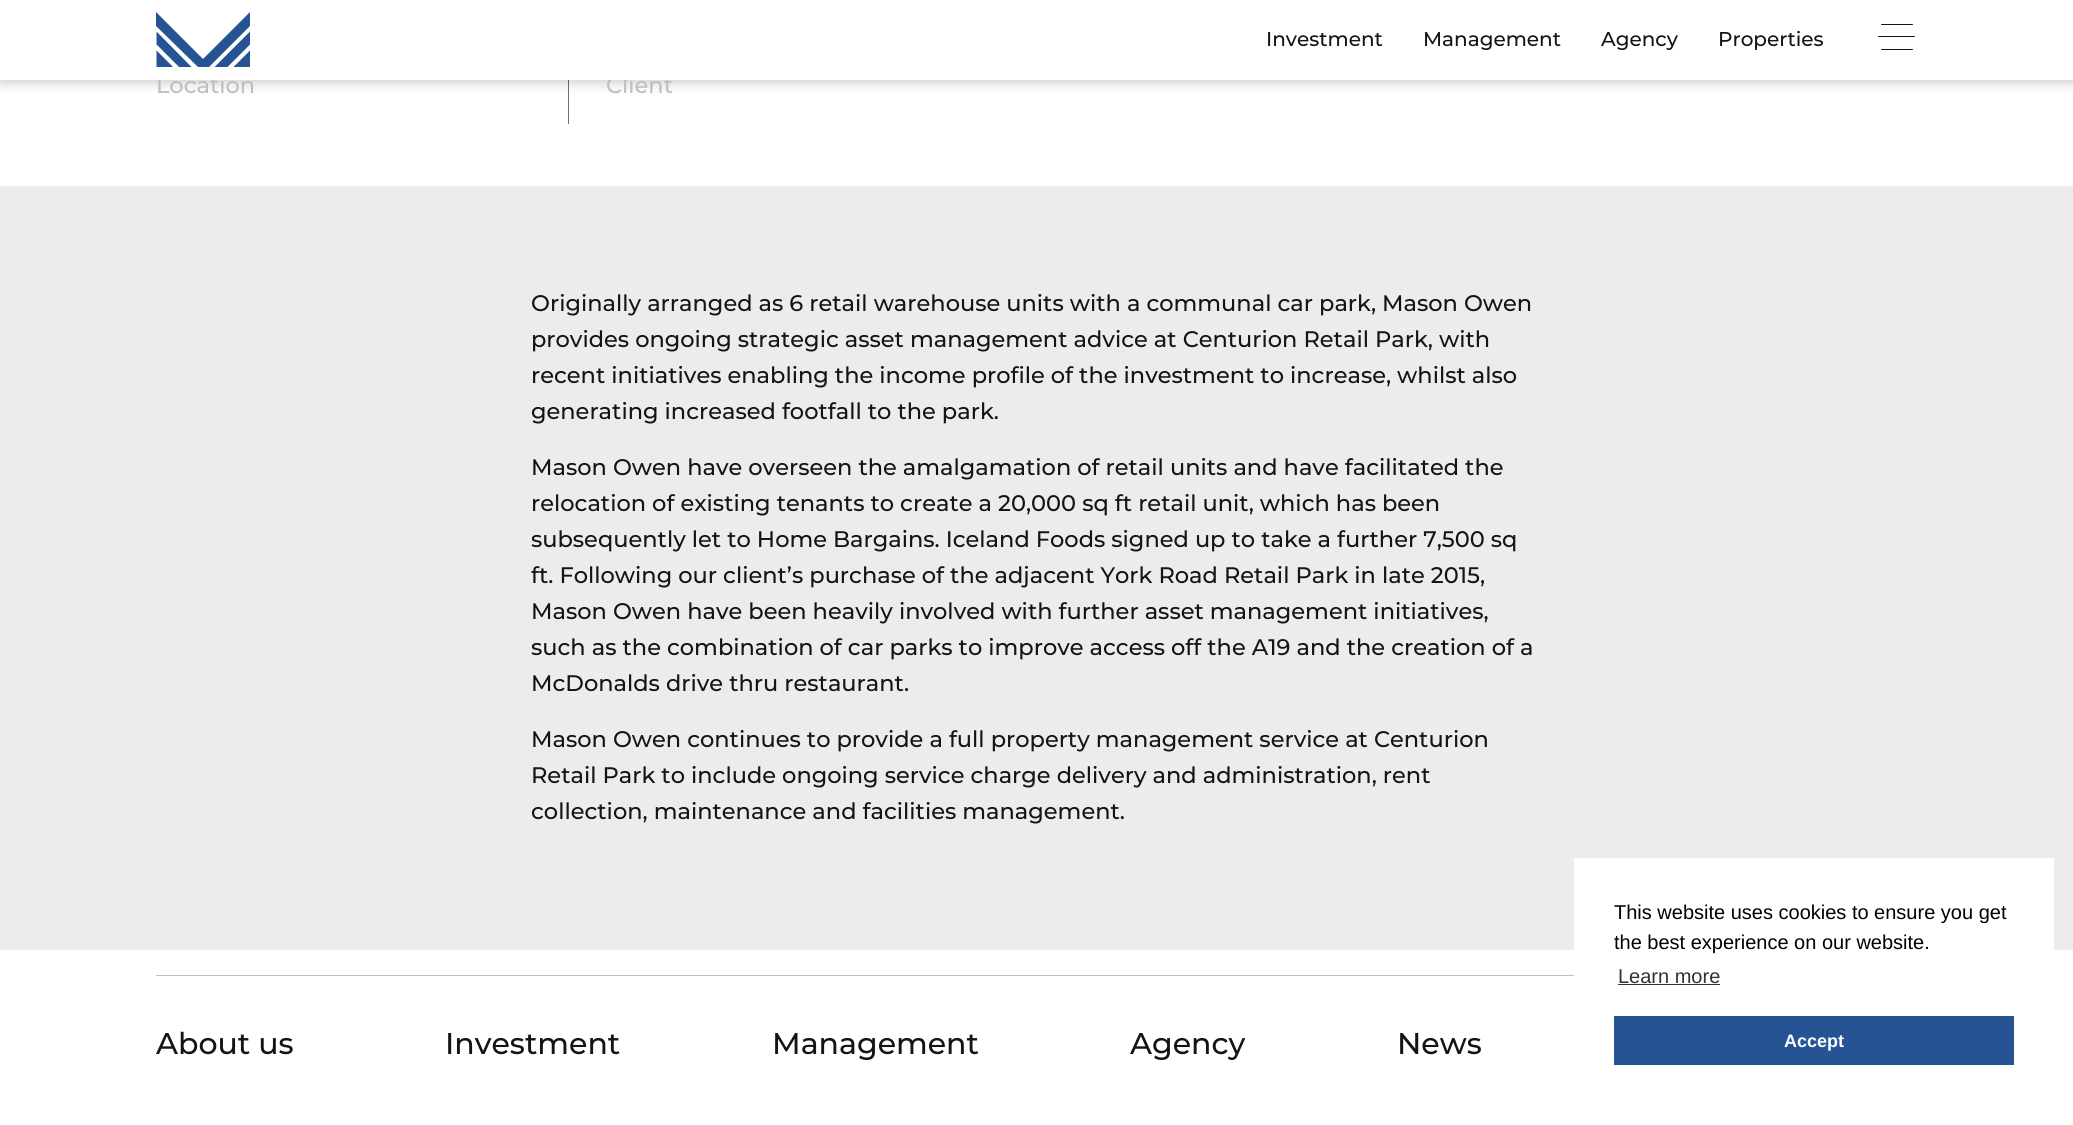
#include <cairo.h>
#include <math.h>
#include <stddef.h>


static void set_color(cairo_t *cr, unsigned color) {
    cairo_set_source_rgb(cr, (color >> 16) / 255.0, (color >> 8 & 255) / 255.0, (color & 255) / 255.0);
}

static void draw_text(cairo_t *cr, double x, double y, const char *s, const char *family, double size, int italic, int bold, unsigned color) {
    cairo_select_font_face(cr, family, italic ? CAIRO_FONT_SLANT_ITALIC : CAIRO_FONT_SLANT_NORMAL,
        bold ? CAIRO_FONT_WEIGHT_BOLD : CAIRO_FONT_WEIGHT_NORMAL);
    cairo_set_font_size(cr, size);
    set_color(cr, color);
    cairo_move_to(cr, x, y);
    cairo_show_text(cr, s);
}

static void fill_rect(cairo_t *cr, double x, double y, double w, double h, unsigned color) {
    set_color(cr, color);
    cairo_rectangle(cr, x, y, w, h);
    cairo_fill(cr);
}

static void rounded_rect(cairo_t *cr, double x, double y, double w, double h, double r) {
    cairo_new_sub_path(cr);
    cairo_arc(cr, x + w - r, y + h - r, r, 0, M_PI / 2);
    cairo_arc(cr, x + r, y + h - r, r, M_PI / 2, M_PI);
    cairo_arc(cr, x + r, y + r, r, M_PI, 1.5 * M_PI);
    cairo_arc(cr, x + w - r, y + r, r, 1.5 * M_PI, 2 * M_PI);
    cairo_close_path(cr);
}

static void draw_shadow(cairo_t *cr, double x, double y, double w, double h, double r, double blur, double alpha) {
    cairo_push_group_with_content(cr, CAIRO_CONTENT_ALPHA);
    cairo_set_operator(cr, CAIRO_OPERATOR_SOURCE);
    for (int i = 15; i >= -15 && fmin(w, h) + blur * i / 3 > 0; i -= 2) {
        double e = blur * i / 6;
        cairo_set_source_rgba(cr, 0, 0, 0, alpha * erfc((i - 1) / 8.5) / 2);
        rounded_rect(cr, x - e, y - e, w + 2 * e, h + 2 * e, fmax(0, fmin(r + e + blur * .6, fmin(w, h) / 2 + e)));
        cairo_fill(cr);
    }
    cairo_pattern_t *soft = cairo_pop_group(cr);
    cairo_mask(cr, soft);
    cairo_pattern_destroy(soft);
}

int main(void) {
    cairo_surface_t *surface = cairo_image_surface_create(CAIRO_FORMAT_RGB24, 2073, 1125);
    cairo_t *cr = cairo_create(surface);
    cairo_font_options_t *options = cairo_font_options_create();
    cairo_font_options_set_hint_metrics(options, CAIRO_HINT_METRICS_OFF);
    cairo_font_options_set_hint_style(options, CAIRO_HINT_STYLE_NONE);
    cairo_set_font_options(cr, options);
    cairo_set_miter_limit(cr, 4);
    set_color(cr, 0xFFFFFF);
    cairo_paint(cr);
    fill_rect(cr, 568, 80, 1, 44, 0x707070);
    set_color(cr, 0x000000);
    draw_shadow(cr, 0, 3, 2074, 80, 0, 6, 0.2);
    draw_text(cr, 156, 93, "Location", "Montserrat Thin", 22.5, 0, 0, 0xBFBFBF);
    draw_text(cr, 606, 93, "Client", "Montserrat Thin", 22.5, 0, 0, 0xBFBFBF);
    fill_rect(cr, 0, 0, 2073, 80, 0xFFFFFF);
    set_color(cr, 0x255393);
    cairo_new_path(cr);
    cairo_move_to(cr, 156.5, 44.5);
    cairo_line_to(cr, 179, 67);
    cairo_line_to(cr, 191.5, 67);
    cairo_line_to(cr, 156.5, 31.5);
    cairo_close_path(cr);
    cairo_fill(cr);
    cairo_new_path(cr);
    cairo_move_to(cr, 156.5, 67);
    cairo_line_to(cr, 173, 67);
    cairo_line_to(cr, 156.5, 50.5);
    cairo_close_path(cr);
    cairo_fill(cr);
    cairo_new_path(cr);
    cairo_move_to(cr, 250, 12);
    cairo_line_to(cr, 203, 59);
    cairo_line_to(cr, 156, 12);
    cairo_line_to(cr, 156, 26);
    cairo_line_to(cr, 198, 67);
    cairo_line_to(cr, 209, 67);
    cairo_line_to(cr, 250, 26);
    cairo_close_path(cr);
    cairo_fill(cr);
    cairo_new_path(cr);
    cairo_move_to(cr, 214.5, 67);
    cairo_line_to(cr, 227.5, 67);
    cairo_line_to(cr, 250, 44.5);
    cairo_line_to(cr, 250, 31.5);
    cairo_close_path(cr);
    cairo_fill(cr);
    cairo_new_path(cr);
    cairo_move_to(cr, 233.5, 67);
    cairo_line_to(cr, 250, 67);
    cairo_line_to(cr, 250, 50.5);
    cairo_close_path(cr);
    cairo_fill(cr);
    draw_text(cr, 1266, 46, "Investment", "Montserrat Thin", 20, 0, 0, 0x141414);
    draw_text(cr, 1423, 46, "Management", "Montserrat Thin", 20, 0, 0, 0x141414);
    draw_text(cr, 1601, 46, "Agency", "Montserrat Thin", 20, 0, 0, 0x141414);
    draw_text(cr, 1718, 46, "Properties", "Montserrat Thin", 20, 0, 0, 0x141414);
    rounded_rect(cr, 1881, 24, 32, 1, 0.5);
    cairo_fill(cr);
    rounded_rect(cr, 1878, 36, 37, 1, 0.5);
    cairo_fill(cr);
    rounded_rect(cr, 1881, 49, 32, 1, 0.5);
    cairo_fill(cr);
    fill_rect(cr, 0, 186, 2073, 764, 0xECECEE);
    draw_text(cr, 531, 311, "Originally arranged as 6 retail warehouse units with a communal car park, Mason Owen", "Montserrat Thin", 22.5, 0, 0, 0x141414);
    draw_text(cr, 531, 347, "provides ongoing strategic asset management advice at Centurion Retail Park, with", "Montserrat Thin", 22.5, 0, 0, 0x141414);
    draw_text(cr, 531, 383, "recent initiatives enabling the income profile of the investment to increase, whilst also", "Montserrat Thin", 22.5, 0, 0, 0x141414);
    draw_text(cr, 531, 419, "generating increased footfall to the park.", "Montserrat Thin", 22.5, 0, 0, 0x141414);
    draw_text(cr, 531, 475, "Mason Owen have overseen the amalgamation of retail units and have facilitated the", "Montserrat Thin", 22.5, 0, 0, 0x141414);
    draw_text(cr, 531, 511, "relocation of existing tenants to create a 20,000 sq ft retail unit, which has been", "Montserrat Thin", 22.5, 0, 0, 0x141414);
    draw_text(cr, 531, 547, "subsequently let to Home Bargains. Iceland Foods signed up to take a further 7,500 sq", "Montserrat Thin", 22.5, 0, 0, 0x141414);
    draw_text(cr, 531, 583, "ft. Following our client’s purchase of the adjacent York Road Retail Park in late 2015,", "Montserrat Thin", 22.5, 0, 0, 0x141414);
    draw_text(cr, 531, 619, "Mason Owen have been heavily involved with further asset management initiatives,", "Montserrat Thin", 22.5, 0, 0, 0x141414);
    draw_text(cr, 531, 655, "such as the combination of car parks to improve access off the A19 and the creation of a", "Montserrat Thin", 22.5, 0, 0, 0x141414);
    draw_text(cr, 531, 691, "McDonalds drive thru restaurant.", "Montserrat Thin", 22.5, 0, 0, 0x141414);
    draw_text(cr, 531, 747, "Mason Owen continues to provide a full property management service at Centurion", "Montserrat Thin", 22.5, 0, 0, 0x141414);
    draw_text(cr, 531, 783, "Retail Park to include ongoing service charge delivery and administration, rent", "Montserrat Thin", 22.5, 0, 0, 0x141414);
    draw_text(cr, 531, 819, "collection, maintenance and facilities management.", "Montserrat Thin", 22.5, 0, 0, 0x141414);
    fill_rect(cr, 156, 975, 1418, 1, 0xBFBFBF);
    draw_text(cr, 156, 1054, "About us", "Montserrat Thin", 30, 0, 0, 0x141414);
    draw_text(cr, 445, 1054, "Investment", "Montserrat Thin", 30, 0, 0, 0x141414);
    draw_text(cr, 772, 1054, "Management", "Montserrat Thin", 30, 0, 0, 0x141414);
    draw_text(cr, 1130, 1054, "Agency", "Montserrat Thin", 30, 0, 0, 0x141414);
    draw_text(cr, 1397, 1054, "News", "Montserrat Thin", 30, 0, 0, 0x141414);
    fill_rect(cr, 1574, 858, 480, 92, 0xFFFFFF);
    draw_text(cr, 1614, 919, "This website uses cookies to ensure you get", "Liberation Sans", 20, 0, 0, 0x000000);
    draw_text(cr, 1614, 949, "the best experience on our website.", "Liberation Sans", 20, 0, 0, 0x000000);
    draw_text(cr, 1618, 983, "Learn more", "Liberation Sans", 20, 0, 0, 0x333333);
    fill_rect(cr, 1618, 984, 102, 1, 0x333333);
    fill_rect(cr, 1614, 1016, 400, 49, 0x255393);
    draw_text(cr, 1784, 1047, "Accept", "Liberation Sans", 18, 0, 1, 0xFFFFFF);
    cairo_surface_write_to_png(surface, "output.png");
    cairo_font_options_destroy(options);
    cairo_destroy(cr);
    cairo_surface_destroy(surface);
    return 0;
}
